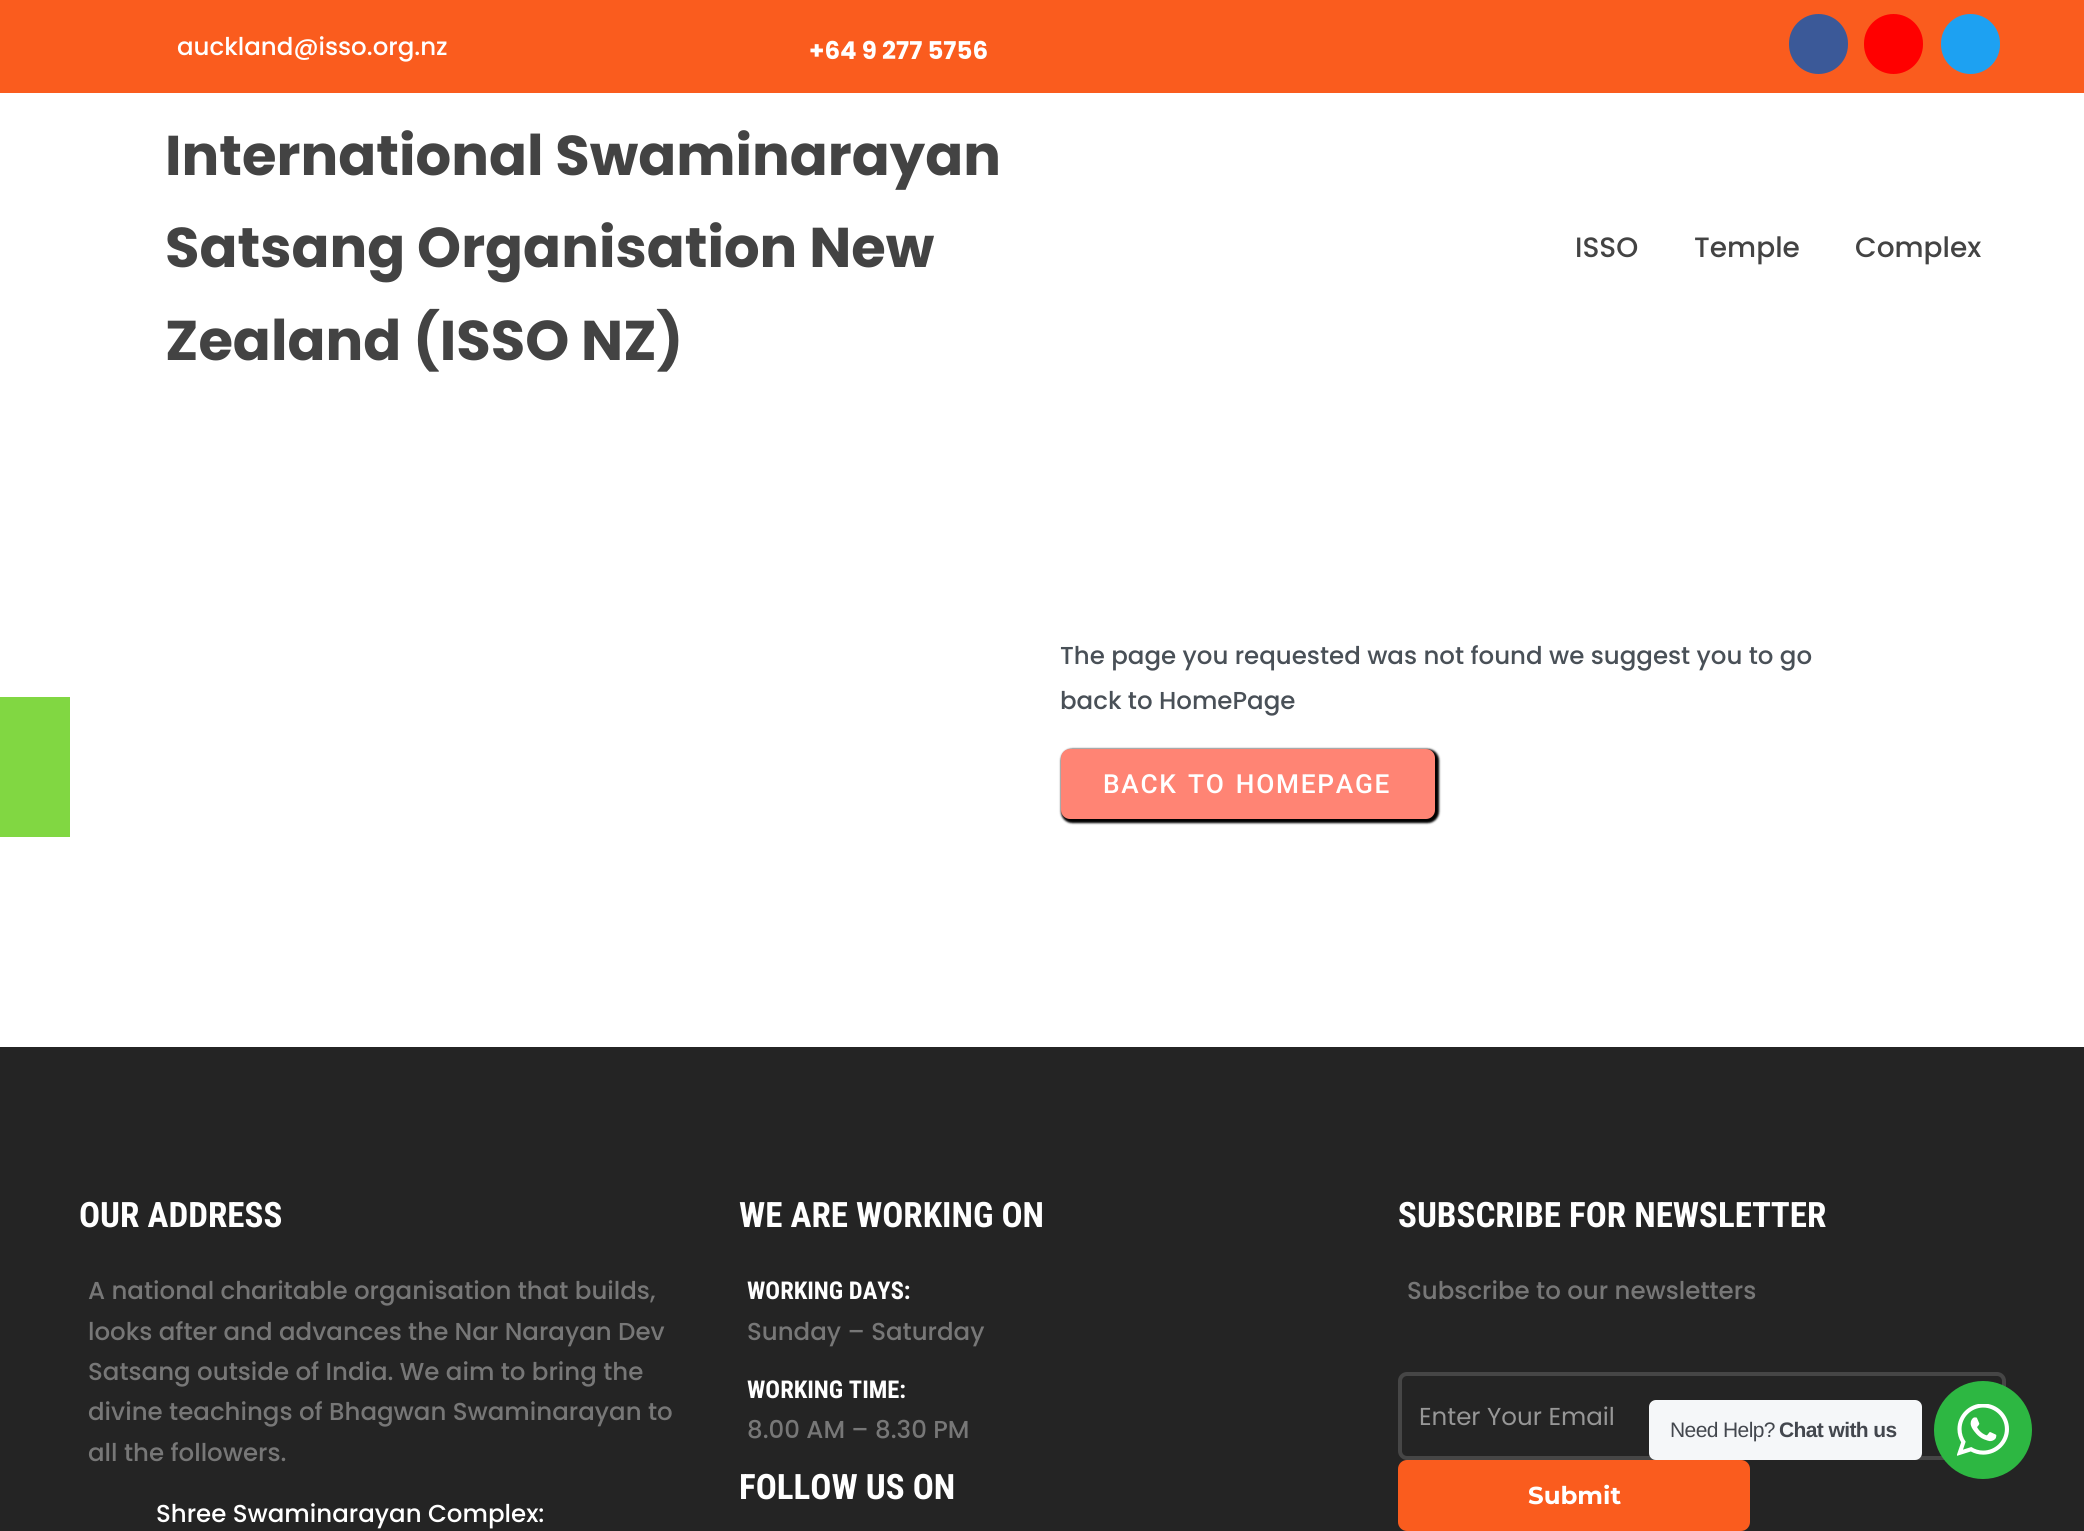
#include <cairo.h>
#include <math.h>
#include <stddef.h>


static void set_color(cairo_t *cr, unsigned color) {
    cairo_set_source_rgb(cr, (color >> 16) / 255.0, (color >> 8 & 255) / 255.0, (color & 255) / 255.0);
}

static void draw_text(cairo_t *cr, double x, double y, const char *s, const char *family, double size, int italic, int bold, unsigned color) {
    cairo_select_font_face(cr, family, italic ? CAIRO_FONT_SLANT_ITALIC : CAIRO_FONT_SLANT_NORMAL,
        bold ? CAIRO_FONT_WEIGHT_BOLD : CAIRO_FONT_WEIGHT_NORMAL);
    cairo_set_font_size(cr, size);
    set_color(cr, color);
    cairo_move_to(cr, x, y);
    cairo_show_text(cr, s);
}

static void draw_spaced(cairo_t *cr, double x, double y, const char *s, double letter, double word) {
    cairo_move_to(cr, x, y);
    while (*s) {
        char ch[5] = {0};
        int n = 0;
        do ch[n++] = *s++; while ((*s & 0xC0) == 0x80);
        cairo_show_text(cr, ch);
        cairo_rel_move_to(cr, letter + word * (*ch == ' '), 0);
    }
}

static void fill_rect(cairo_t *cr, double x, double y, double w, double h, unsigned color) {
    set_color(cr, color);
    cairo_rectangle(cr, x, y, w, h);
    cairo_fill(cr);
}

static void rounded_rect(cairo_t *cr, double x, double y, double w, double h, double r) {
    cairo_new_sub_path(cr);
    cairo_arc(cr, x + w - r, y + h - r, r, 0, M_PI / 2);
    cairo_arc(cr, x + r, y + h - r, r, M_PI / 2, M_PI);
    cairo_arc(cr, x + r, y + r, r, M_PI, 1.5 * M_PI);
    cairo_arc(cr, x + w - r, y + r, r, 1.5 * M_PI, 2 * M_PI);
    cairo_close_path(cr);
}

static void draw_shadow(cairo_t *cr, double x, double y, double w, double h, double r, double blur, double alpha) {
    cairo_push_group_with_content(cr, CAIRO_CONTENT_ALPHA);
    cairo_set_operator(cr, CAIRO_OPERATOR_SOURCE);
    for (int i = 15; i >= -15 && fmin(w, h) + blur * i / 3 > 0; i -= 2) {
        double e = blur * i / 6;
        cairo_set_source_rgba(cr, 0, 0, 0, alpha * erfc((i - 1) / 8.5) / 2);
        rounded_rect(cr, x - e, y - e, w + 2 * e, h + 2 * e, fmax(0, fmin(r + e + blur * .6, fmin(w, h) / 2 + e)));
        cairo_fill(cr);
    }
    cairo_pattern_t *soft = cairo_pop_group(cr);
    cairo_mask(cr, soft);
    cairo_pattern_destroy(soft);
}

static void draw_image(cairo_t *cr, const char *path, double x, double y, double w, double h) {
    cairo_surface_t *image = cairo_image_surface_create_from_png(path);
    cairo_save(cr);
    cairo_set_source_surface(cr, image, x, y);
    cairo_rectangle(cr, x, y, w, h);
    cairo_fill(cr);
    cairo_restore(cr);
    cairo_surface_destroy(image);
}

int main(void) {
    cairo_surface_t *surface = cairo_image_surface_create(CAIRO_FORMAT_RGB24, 2084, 1531);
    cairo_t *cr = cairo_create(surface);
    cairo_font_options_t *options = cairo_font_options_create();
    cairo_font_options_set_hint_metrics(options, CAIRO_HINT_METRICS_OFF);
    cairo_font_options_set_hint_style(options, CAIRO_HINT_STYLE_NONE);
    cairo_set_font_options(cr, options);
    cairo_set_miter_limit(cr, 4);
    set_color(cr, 0xFFFFFF);
    cairo_paint(cr);
    fill_rect(cr, 0, 0, 2084, 93, 0xFA5C1E);
    draw_text(cr, 177, 55, "auckland@isso.org.nz", "Poppins Medium", 24.5, 0, 0, 0xFFFFFF);
    draw_text(cr, 809, 59, "+64 9 277 5756", "Poppins", 24.5, 0, 1, 0xFFFFFF);
    set_color(cr, 0x3B5998);
    rounded_rect(cr, 1789, 14, 59, 60, 29.5);
    cairo_fill(cr);
    set_color(cr, 0xFF0000);
    rounded_rect(cr, 1864, 14, 59, 60, 29.5);
    cairo_fill(cr);
    set_color(cr, 0x1DA1F2);
    rounded_rect(cr, 1941, 14, 59, 60, 29.5);
    cairo_fill(cr);
    draw_text(cr, 165, 175, "International Swaminarayan", "Poppins", 56, 0, 1, 0x434343);
    draw_text(cr, 165, 267, "Satsang Organisation New", "Poppins", 56, 0, 1, 0x434343);
    draw_text(cr, 165, 360, "Zealand (ISSO NZ)", "Poppins", 56, 0, 1, 0x434343);
    draw_text(cr, 1575, 257, "ISSO", "Poppins Medium", 28, 0, 0, 0x434343);
    draw_text(cr, 1694, 257, "Temple", "Poppins Medium", 28, 0, 0, 0x434343);
    draw_text(cr, 1855, 257, "Complex", "Poppins Medium", 28, 0, 0, 0x434343);
    fill_rect(cr, 0, 697, 70, 140, 0x81D742);
    draw_text(cr, 1060, 664, "The page you requested was not found we suggest you to go", "Poppins Medium", 24.5, 0, 0, 0x495057);
    draw_text(cr, 1060, 709, "back to HomePage", "Poppins Medium", 24.5, 0, 0, 0x495057);
    set_color(cr, 0x000000);
    draw_shadow(cr, 1061, 749, 378, 74, 11, 1, 1);
    set_color(cr, 0xFF8474);
    rounded_rect(cr, 1061, 749, 374, 70, 9);
    cairo_fill(cr);
    cairo_select_font_face(cr, "Roboto Medium", CAIRO_FONT_SLANT_NORMAL, CAIRO_FONT_WEIGHT_NORMAL);
    cairo_set_font_size(cr, 26.25);
    set_color(cr, 0xFFFFFF);
    draw_spaced(cr, 1103, 793, "BACK TO HOMEPAGE", 1.75, 2);
    fill_rect(cr, 0, 1047, 2084, 484, 0x242424);
    draw_text(cr, 79, 1227, "OUR ADDRESS", "Roboto Condensed", 35, 0, 1, 0xFFFFFF);
    draw_text(cr, 88, 1299, "A national charitable organisation that builds,", "Poppins Medium", 24.5, 0, 0, 0x777777);
    draw_text(cr, 88, 1340, "looks after and advances the Nar Narayan Dev", "Poppins Medium", 24.5, 0, 0, 0x777777);
    draw_text(cr, 88, 1380, "Satsang outside of India. We aim to bring the", "Poppins Medium", 24.5, 0, 0, 0x777777);
    draw_text(cr, 88, 1420, "divine teachings of Bhagwan Swaminarayan to", "Poppins Medium", 24.5, 0, 0, 0x777777);
    draw_text(cr, 88, 1461, "all the followers.", "Poppins Medium", 24.5, 0, 0, 0x777777);
    draw_text(cr, 156, 1522, "Shree Swaminarayan Complex:", "Poppins Medium", 24.5, 0, 0, 0xFFFFFF);
    draw_text(cr, 739, 1227, "WE ARE WORKING ON", "Roboto Condensed", 35, 0, 1, 0xFFFFFF);
    draw_text(cr, 747, 1299, "WORKING DAYS:", "Roboto Condensed", 24.5, 0, 1, 0xFFFFFF);
    draw_text(cr, 747, 1340, "Sunday – Saturday", "Poppins Medium", 24.5, 0, 0, 0x777777);
    draw_text(cr, 747, 1398, "WORKING TIME:", "Roboto Condensed", 24.5, 0, 1, 0xFFFFFF);
    draw_text(cr, 747, 1438, "8.00 AM – 8.30 PM", "Poppins Medium", 24.5, 0, 0, 0x777777);
    draw_text(cr, 739, 1499, "FOLLOW US ON", "Roboto Condensed", 35, 0, 1, 0xFFFFFF);
    draw_text(cr, 1398, 1227, "SUBSCRIBE FOR NEWSLETTER", "Roboto Condensed", 35, 0, 1, 0xFFFFFF);
    draw_text(cr, 1407, 1299, "Subscribe to our newsletters", "Poppins Medium", 24.5, 0, 0, 0x777777);
    rounded_rect(cr, 1400, 1374, 604, 84, 7);
    set_color(cr, 0x464646);
    cairo_set_line_width(cr, 4);
    cairo_stroke(cr);
    draw_text(cr, 1419, 1425, "Enter Your Email", "Poppins", 24.5, 0, 0, 0x979797);
    set_color(cr, 0xFA5C1E);
    rounded_rect(cr, 1400.5, 1462.5, 347, 66, 6.5);
    cairo_fill_preserve(cr);
    cairo_set_line_width(cr, 5);
    cairo_stroke(cr);
    draw_text(cr, 1528, 1504, "Submit", "Montserrat", 24.5, 0, 1, 0xFFFFFF);
    set_color(cr, 0xF5F7F9);
    rounded_rect(cr, 1649, 1400, 273, 60, 7);
    cairo_fill(cr);
    cairo_select_font_face(cr, "Liberation Sans", CAIRO_FONT_SLANT_NORMAL, CAIRO_FONT_WEIGHT_NORMAL);
    cairo_set_font_size(cr, 21);
    set_color(cr, 0x43474E);
    draw_spaced(cr, 1670, 1437, "Need Help?", -0.6, 0);
    cairo_select_font_face(cr, "Liberation Sans", CAIRO_FONT_SLANT_NORMAL, CAIRO_FONT_WEIGHT_BOLD);
    draw_spaced(cr, 1779, 1437, "Chat with us", -0.6, 0);
    set_color(cr, 0x2DB742);
    cairo_new_path(cr);
    cairo_arc(cr, 1983, 1430, 49, 0, 2 * M_PI);
    cairo_fill(cr);
    draw_image(cr, "assets/img1.png", 1957, 1404, 52, 52);
    cairo_surface_write_to_png(surface, "output.png");
    cairo_font_options_destroy(options);
    cairo_destroy(cr);
    cairo_surface_destroy(surface);
    return 0;
}
